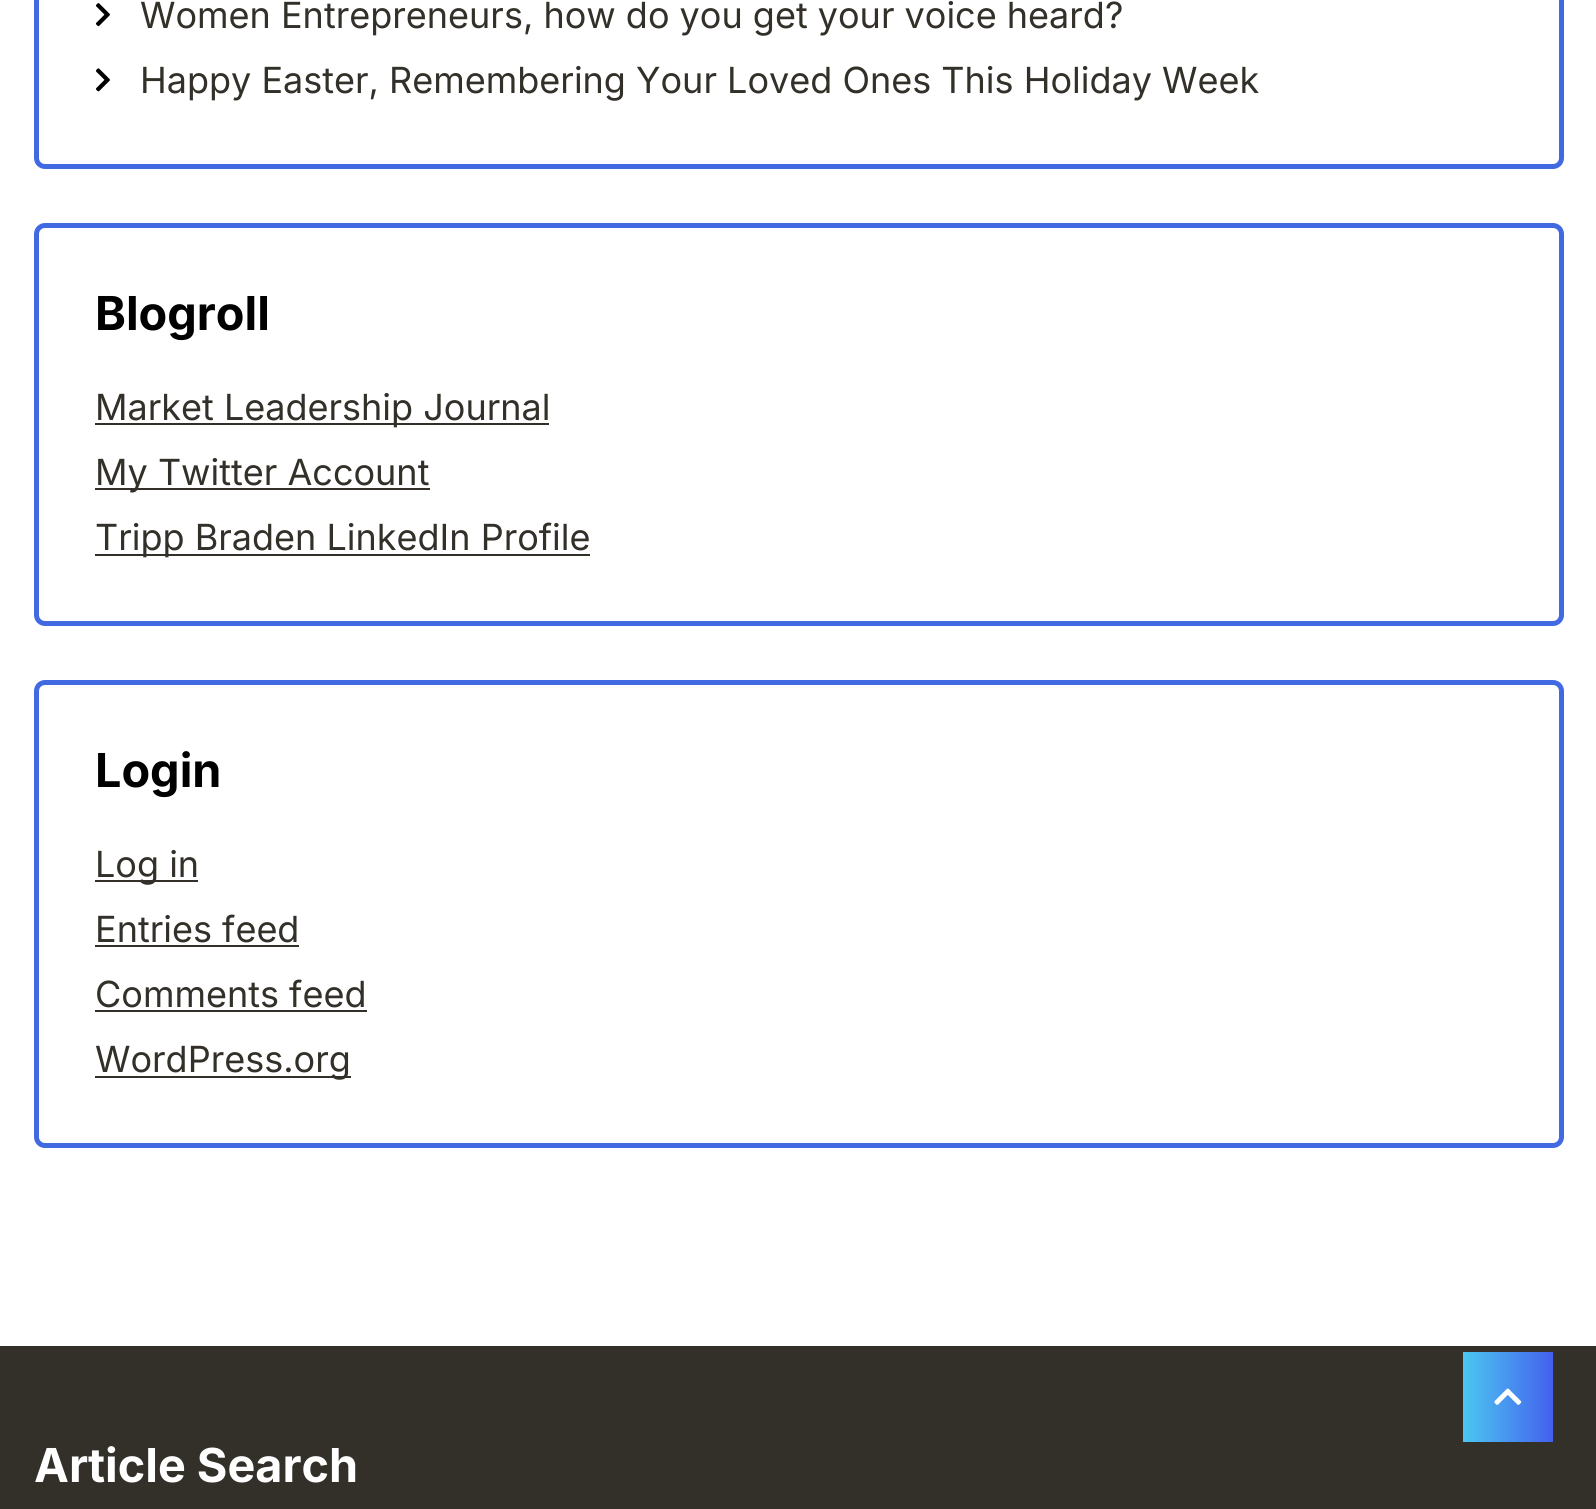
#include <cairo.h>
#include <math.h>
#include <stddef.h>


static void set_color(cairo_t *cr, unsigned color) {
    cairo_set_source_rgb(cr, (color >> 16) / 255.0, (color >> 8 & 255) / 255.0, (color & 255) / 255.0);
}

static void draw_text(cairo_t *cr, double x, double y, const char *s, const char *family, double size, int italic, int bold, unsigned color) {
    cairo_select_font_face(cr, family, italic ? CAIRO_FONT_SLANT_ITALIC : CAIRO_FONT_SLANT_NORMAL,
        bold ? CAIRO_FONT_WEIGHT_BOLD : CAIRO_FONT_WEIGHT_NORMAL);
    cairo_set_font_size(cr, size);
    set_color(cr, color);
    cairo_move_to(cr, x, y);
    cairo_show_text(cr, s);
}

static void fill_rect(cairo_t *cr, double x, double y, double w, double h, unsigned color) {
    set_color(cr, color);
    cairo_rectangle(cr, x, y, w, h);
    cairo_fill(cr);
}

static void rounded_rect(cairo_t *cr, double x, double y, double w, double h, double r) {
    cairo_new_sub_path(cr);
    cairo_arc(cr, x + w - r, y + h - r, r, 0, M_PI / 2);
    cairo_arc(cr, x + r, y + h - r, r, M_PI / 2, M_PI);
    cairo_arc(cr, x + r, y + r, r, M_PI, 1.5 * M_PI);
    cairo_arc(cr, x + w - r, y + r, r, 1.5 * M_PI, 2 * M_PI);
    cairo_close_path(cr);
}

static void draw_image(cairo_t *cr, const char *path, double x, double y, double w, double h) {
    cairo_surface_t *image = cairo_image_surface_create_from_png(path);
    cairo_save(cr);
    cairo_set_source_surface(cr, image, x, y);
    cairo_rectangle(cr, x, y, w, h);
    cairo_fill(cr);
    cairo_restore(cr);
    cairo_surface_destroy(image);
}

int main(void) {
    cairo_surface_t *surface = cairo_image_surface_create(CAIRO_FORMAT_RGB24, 1596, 1509);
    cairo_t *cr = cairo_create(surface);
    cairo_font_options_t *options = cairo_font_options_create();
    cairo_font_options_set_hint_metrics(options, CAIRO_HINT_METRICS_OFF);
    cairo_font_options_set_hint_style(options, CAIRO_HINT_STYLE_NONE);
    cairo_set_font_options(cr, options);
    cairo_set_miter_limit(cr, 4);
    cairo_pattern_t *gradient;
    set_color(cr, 0xFFFFFF);
    cairo_paint(cr);
    rounded_rect(cr, 36.5, -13.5, 1525, 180, 8.5);
    set_color(cr, 0x4169E1);
    cairo_set_line_width(cr, 5);
    cairo_stroke(cr);
    draw_image(cr, "assets/img1.png", 96, 3, 14, 24);
    draw_text(cr, 140, 28, "Women Entrepreneurs, how do you get your voice heard?", "Inter", 36, 0, 0, 0x333029);
    draw_image(cr, "assets/img2.png", 96, 68, 14, 24);
    draw_text(cr, 140, 93, "Happy Easter, Remembering Your Loved Ones This Holiday Week", "Inter", 36, 0, 0, 0x333029);
    rounded_rect(cr, 36.5, 225.5, 1525, 398, 8.5);
    set_color(cr, 0x4169E1);
    cairo_stroke(cr);
    draw_text(cr, 95, 330, "Blogroll", "Inter", 46.75, 0, 1, 0x000000);
    fill_rect(cr, 95, 423, 454, 2, 0x333029);
    draw_text(cr, 95, 420, "Market Leadership Journal", "Inter", 36, 0, 0, 0x333029);
    fill_rect(cr, 95, 488, 335, 2, 0x333029);
    draw_text(cr, 95, 485, "My Twitter Account", "Inter", 36, 0, 0, 0x333029);
    fill_rect(cr, 95, 554, 495, 2, 0x333029);
    draw_text(cr, 95, 550, "Tripp Braden LinkedIn Profile", "Inter", 36, 0, 0, 0x333029);
    rounded_rect(cr, 36.5, 682.5, 1525, 463, 8.5);
    set_color(cr, 0x4169E1);
    cairo_stroke(cr);
    draw_text(cr, 95, 787, "Login", "Inter", 46.75, 0, 1, 0x000000);
    fill_rect(cr, 95, 880, 103, 2, 0x333029);
    draw_text(cr, 95, 877, "Log in", "Inter", 36, 0, 0, 0x333029);
    draw_text(cr, 95, 942, "Entries feed", "Inter", 36, 0, 0, 0x333029);
    fill_rect(cr, 95, 945, 204, 2, 0x333029);
    draw_text(cr, 95, 1007, "Comments feed", "Inter", 36, 0, 0, 0x333029);
    fill_rect(cr, 95, 1010, 272, 2, 0x333029);
    fill_rect(cr, 95, 1076, 256, 2, 0x333029);
    draw_text(cr, 95, 1072, "WordPress.org", "Inter", 36, 0, 0, 0x333029);
    fill_rect(cr, 0, 1346, 1596, 163, 0x333029);
    draw_text(cr, 34, 1482, "Article Search", "Inter", 46.75, 0, 1, 0xFFFFFF);
    gradient = cairo_pattern_create_linear(1463, 1397, 1553, 1397);
    cairo_pattern_add_color_stop_rgba(gradient, 0, 0.298, 0.78, 0.941, 1);
    cairo_pattern_add_color_stop_rgba(gradient, 1, 0.263, 0.38, 0.933, 1);
    cairo_set_source(cr, gradient);
    cairo_pattern_destroy(gradient);
    cairo_rectangle(cr, 1463, 1352, 90, 90);
    cairo_fill(cr);
    draw_image(cr, "assets/img3.png", 1494, 1388, 28, 17);
    cairo_surface_write_to_png(surface, "output.png");
    cairo_font_options_destroy(options);
    cairo_destroy(cr);
    cairo_surface_destroy(surface);
    return 0;
}
